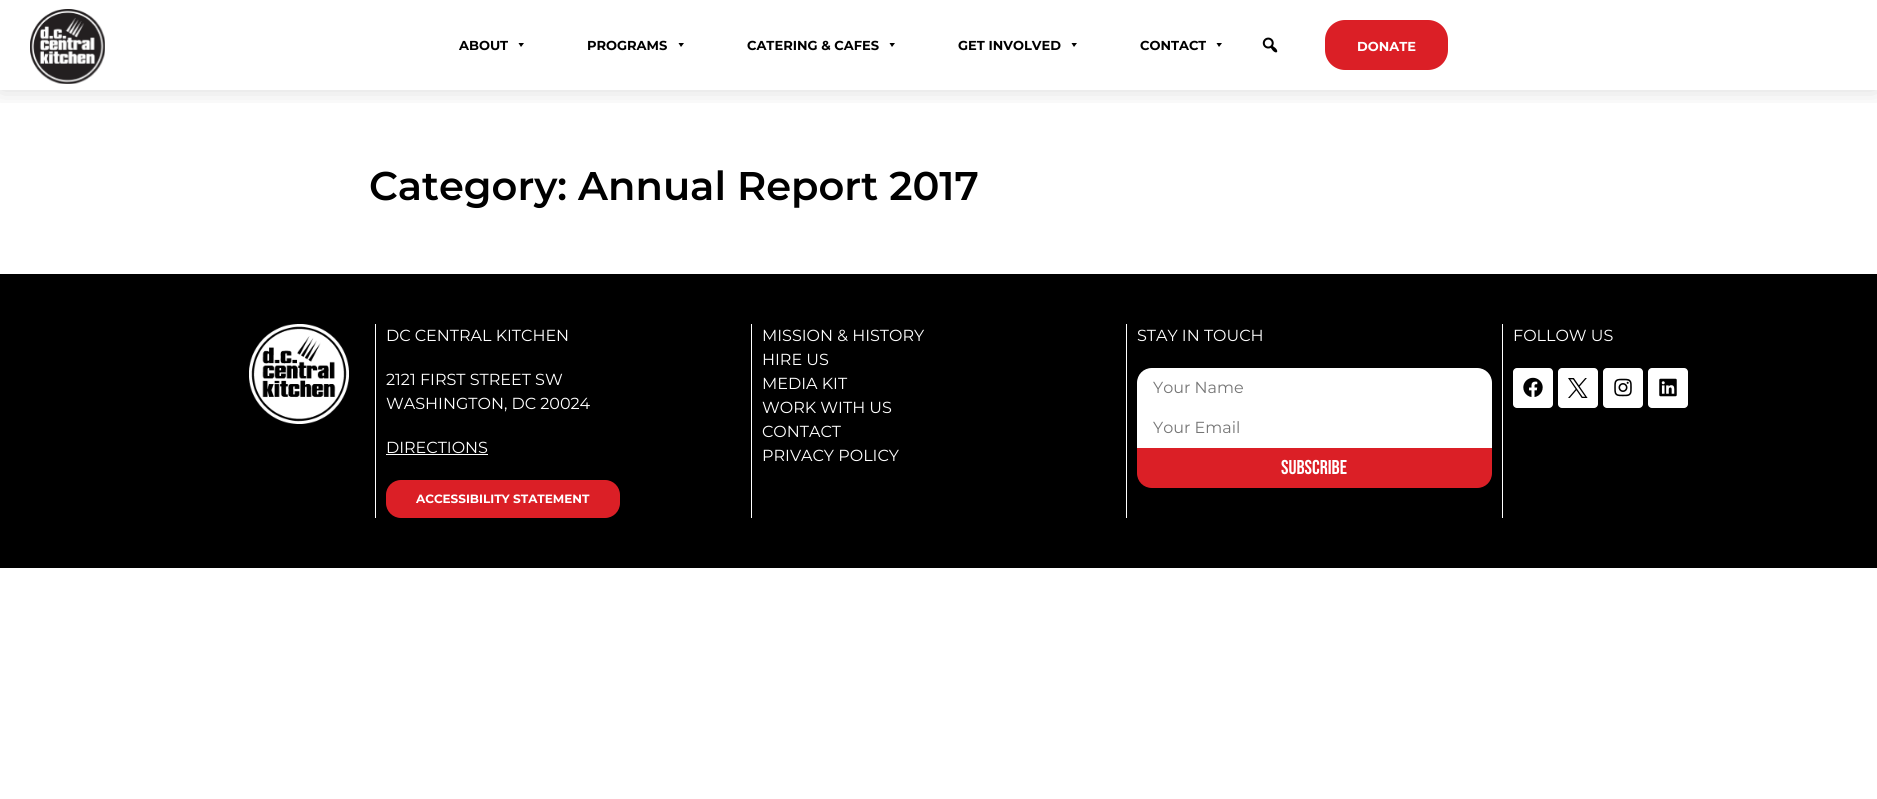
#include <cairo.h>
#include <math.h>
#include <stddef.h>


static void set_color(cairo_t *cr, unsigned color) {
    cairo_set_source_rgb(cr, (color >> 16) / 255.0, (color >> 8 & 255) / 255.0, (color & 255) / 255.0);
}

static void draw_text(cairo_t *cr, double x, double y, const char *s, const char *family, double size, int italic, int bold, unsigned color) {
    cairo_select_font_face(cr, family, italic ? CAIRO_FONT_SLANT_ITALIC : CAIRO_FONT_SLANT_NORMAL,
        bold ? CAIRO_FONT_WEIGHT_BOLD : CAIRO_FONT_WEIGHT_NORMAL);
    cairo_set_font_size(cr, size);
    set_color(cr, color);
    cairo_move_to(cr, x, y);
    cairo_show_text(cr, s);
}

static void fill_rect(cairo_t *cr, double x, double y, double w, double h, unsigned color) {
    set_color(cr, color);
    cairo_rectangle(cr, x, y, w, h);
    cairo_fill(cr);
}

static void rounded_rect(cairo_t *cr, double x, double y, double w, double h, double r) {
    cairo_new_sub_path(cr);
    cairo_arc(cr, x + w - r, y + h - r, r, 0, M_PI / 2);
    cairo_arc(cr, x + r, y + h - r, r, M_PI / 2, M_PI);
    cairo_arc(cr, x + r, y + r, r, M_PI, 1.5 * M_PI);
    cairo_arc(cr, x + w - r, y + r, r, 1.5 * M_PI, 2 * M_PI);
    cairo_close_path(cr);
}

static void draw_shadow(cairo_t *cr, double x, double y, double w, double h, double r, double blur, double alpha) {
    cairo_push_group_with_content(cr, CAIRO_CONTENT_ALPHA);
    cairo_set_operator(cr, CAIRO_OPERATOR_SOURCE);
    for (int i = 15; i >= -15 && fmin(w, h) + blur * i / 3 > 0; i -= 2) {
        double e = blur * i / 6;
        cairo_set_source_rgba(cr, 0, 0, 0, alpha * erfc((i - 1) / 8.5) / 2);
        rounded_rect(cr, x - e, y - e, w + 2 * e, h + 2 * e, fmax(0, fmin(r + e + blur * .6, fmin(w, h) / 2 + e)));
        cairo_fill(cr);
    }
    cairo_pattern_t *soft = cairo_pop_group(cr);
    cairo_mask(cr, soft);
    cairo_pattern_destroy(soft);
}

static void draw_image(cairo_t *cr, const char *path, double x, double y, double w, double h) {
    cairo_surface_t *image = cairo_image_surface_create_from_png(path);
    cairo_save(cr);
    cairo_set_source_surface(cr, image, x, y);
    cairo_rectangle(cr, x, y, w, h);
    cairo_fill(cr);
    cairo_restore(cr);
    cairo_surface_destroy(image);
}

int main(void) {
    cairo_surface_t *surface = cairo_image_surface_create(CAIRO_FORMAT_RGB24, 1877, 799);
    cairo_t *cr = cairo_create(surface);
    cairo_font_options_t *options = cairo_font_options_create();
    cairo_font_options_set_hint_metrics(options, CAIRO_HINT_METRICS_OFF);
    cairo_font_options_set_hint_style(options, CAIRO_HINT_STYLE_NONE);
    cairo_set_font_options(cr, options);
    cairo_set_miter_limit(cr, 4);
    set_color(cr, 0xFFFFFF);
    cairo_paint(cr);
    cairo_save(cr);
    cairo_rectangle(cr, 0, 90, 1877, 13);
    cairo_clip(cr);
    set_color(cr, 0x000000);
    draw_shadow(cr, 0, 0, 1877, 90, 0, 12, 0.15);
    cairo_restore(cr);
    draw_image(cr, "assets/img1.png", 30, 9, 75, 75);
    draw_text(cr, 459, 50, "ABOUT", "Montserrat", 13, 0, 1, 0x000000);
    cairo_new_path(cr);
    cairo_move_to(cr, 524, 43);
    cairo_line_to(cr, 521, 47);
    cairo_line_to(cr, 518.5, 43);
    cairo_close_path(cr);
    cairo_fill(cr);
    draw_text(cr, 587, 50, "PROGRAMS", "Montserrat", 13, 0, 1, 0x000000);
    cairo_new_path(cr);
    cairo_move_to(cr, 684, 43);
    cairo_line_to(cr, 681, 47);
    cairo_line_to(cr, 678.5, 43);
    cairo_close_path(cr);
    cairo_fill(cr);
    draw_text(cr, 747, 50, "CATERING & CAFES", "Montserrat", 13, 0, 1, 0x000000);
    cairo_new_path(cr);
    cairo_move_to(cr, 895, 43);
    cairo_line_to(cr, 892, 47);
    cairo_line_to(cr, 889.5, 43);
    cairo_close_path(cr);
    cairo_fill(cr);
    draw_text(cr, 958, 50, "GET INVOLVED", "Montserrat", 13, 0, 1, 0x000000);
    cairo_new_path(cr);
    cairo_move_to(cr, 1077, 43);
    cairo_line_to(cr, 1074, 47);
    cairo_line_to(cr, 1071.5, 43);
    cairo_close_path(cr);
    cairo_fill(cr);
    draw_text(cr, 1140, 50, "CONTACT", "Montserrat", 13, 0, 1, 0x000000);
    cairo_new_path(cr);
    cairo_move_to(cr, 1222, 43);
    cairo_line_to(cr, 1219, 47);
    cairo_line_to(cr, 1216.5, 43);
    cairo_close_path(cr);
    cairo_fill(cr);
    draw_image(cr, "assets/img2.png", 1262, 37, 16, 16);
    set_color(cr, 0xDB1F26);
    rounded_rect(cr, 1326, 21, 121, 48, 19);
    cairo_fill_preserve(cr);
    cairo_stroke(cr);
    draw_text(cr, 1357, 51, "DONATE", "Montserrat", 13, 0, 1, 0xFFFFFF);
    draw_text(cr, 369, 200, "Category: Annual Report 2017", "Montserrat SemiBold", 40, 0, 0, 0x000000);
    fill_rect(cr, 0, 274, 1877, 294, 0x000000);
    draw_image(cr, "assets/img3.png", 249, 324, 100, 100);
    fill_rect(cr, 375, 324, 1, 194, 0xFFFFFF);
    draw_text(cr, 386, 341, "DC CENTRAL KITCHEN", "Montserrat", 16, 0, 0, 0xFFFFFF);
    draw_text(cr, 386, 385, "2121 FIRST STREET SW", "Montserrat", 16, 0, 0, 0xFFFFFF);
    draw_text(cr, 386, 409, "WASHINGTON, DC 20024", "Montserrat", 16, 0, 0, 0xFFFFFF);
    draw_text(cr, 386, 453, "DIRECTIONS", "Montserrat", 16, 0, 0, 0xFFFFFF);
    fill_rect(cr, 386, 454, 102, 1, 0xFFFFFF);
    set_color(cr, 0xDB1F26);
    rounded_rect(cr, 386, 480, 234, 38, 15);
    cairo_fill(cr);
    draw_text(cr, 416, 503, "ACCESSIBILITY STATEMENT", "Montserrat", 12, 0, 1, 0xFFFFFF);
    fill_rect(cr, 751, 324, 1, 194, 0xFFFFFF);
    draw_text(cr, 762, 341, "MISSION & HISTORY", "Montserrat", 16, 0, 0, 0xFFFFFF);
    draw_text(cr, 762, 365, "HIRE US", "Montserrat", 16, 0, 0, 0xFFFFFF);
    draw_text(cr, 762, 389, "MEDIA KIT", "Montserrat", 16, 0, 0, 0xFFFFFF);
    draw_text(cr, 762, 413, "WORK WITH US", "Montserrat", 16, 0, 0, 0xFFFFFF);
    draw_text(cr, 762, 437, "CONTACT", "Montserrat", 16, 0, 0, 0xFFFFFF);
    draw_text(cr, 762, 461, "PRIVACY POLICY", "Montserrat", 16, 0, 0, 0xFFFFFF);
    fill_rect(cr, 1126, 324, 1, 194, 0xFFFFFF);
    draw_text(cr, 1137, 341, "STAY IN TOUCH", "Montserrat", 16, 0, 0, 0xFFFFFF);
    cairo_new_path(cr);
    cairo_move_to(cr, 1152, 368);
    cairo_line_to(cr, 1477, 368);
    cairo_curve_to(cr, 1485.5, 368, 1492, 374.5, 1492, 383);
    cairo_line_to(cr, 1492, 408);
    cairo_line_to(cr, 1137, 408);
    cairo_line_to(cr, 1137, 383);
    cairo_curve_to(cr, 1137, 374.5, 1143.5, 368, 1152, 368);
    cairo_close_path(cr);
    cairo_fill(cr);
    draw_text(cr, 1153, 393, "Your Name", "Montserrat", 16, 0, 0, 0x757575);
    fill_rect(cr, 1137, 408, 355, 40, 0xFFFFFF);
    draw_text(cr, 1153, 433, "Your Email", "Montserrat", 16, 0, 0, 0x757575);
    set_color(cr, 0xDB1F26);
    cairo_new_path(cr);
    cairo_move_to(cr, 1137, 448);
    cairo_line_to(cr, 1492, 448);
    cairo_line_to(cr, 1492, 473);
    cairo_curve_to(cr, 1492, 481.5, 1485.5, 488, 1477, 488);
    cairo_line_to(cr, 1152, 488);
    cairo_curve_to(cr, 1143.5, 488, 1137, 481.5, 1137, 473);
    cairo_close_path(cr);
    cairo_fill(cr);
    draw_text(cr, 1281, 474, "SUBSCRIBE", "Bebas Neue", 20, 0, 0, 0xFFFFFF);
    fill_rect(cr, 1502, 324, 1, 194, 0xFFFFFF);
    draw_text(cr, 1513, 341, "FOLLOW US", "Montserrat", 16, 0, 0, 0xFFFFFF);
    rounded_rect(cr, 1513, 368, 40, 40, 4);
    cairo_fill(cr);
    draw_image(cr, "assets/img4.png", 1523, 377, 20, 20);
    rounded_rect(cr, 1558, 368, 40, 40, 4);
    cairo_fill(cr);
    draw_image(cr, "assets/img5.png", 1568, 378, 20, 20);
    rounded_rect(cr, 1603, 368, 40, 40, 4);
    cairo_fill(cr);
    draw_image(cr, "assets/img6.png", 1614, 378, 18, 19);
    rounded_rect(cr, 1648, 368, 40, 40, 4);
    cairo_fill(cr);
    draw_image(cr, "assets/img7.png", 1659, 378, 18, 19);
    cairo_surface_write_to_png(surface, "output.png");
    cairo_font_options_destroy(options);
    cairo_destroy(cr);
    cairo_surface_destroy(surface);
    return 0;
}
